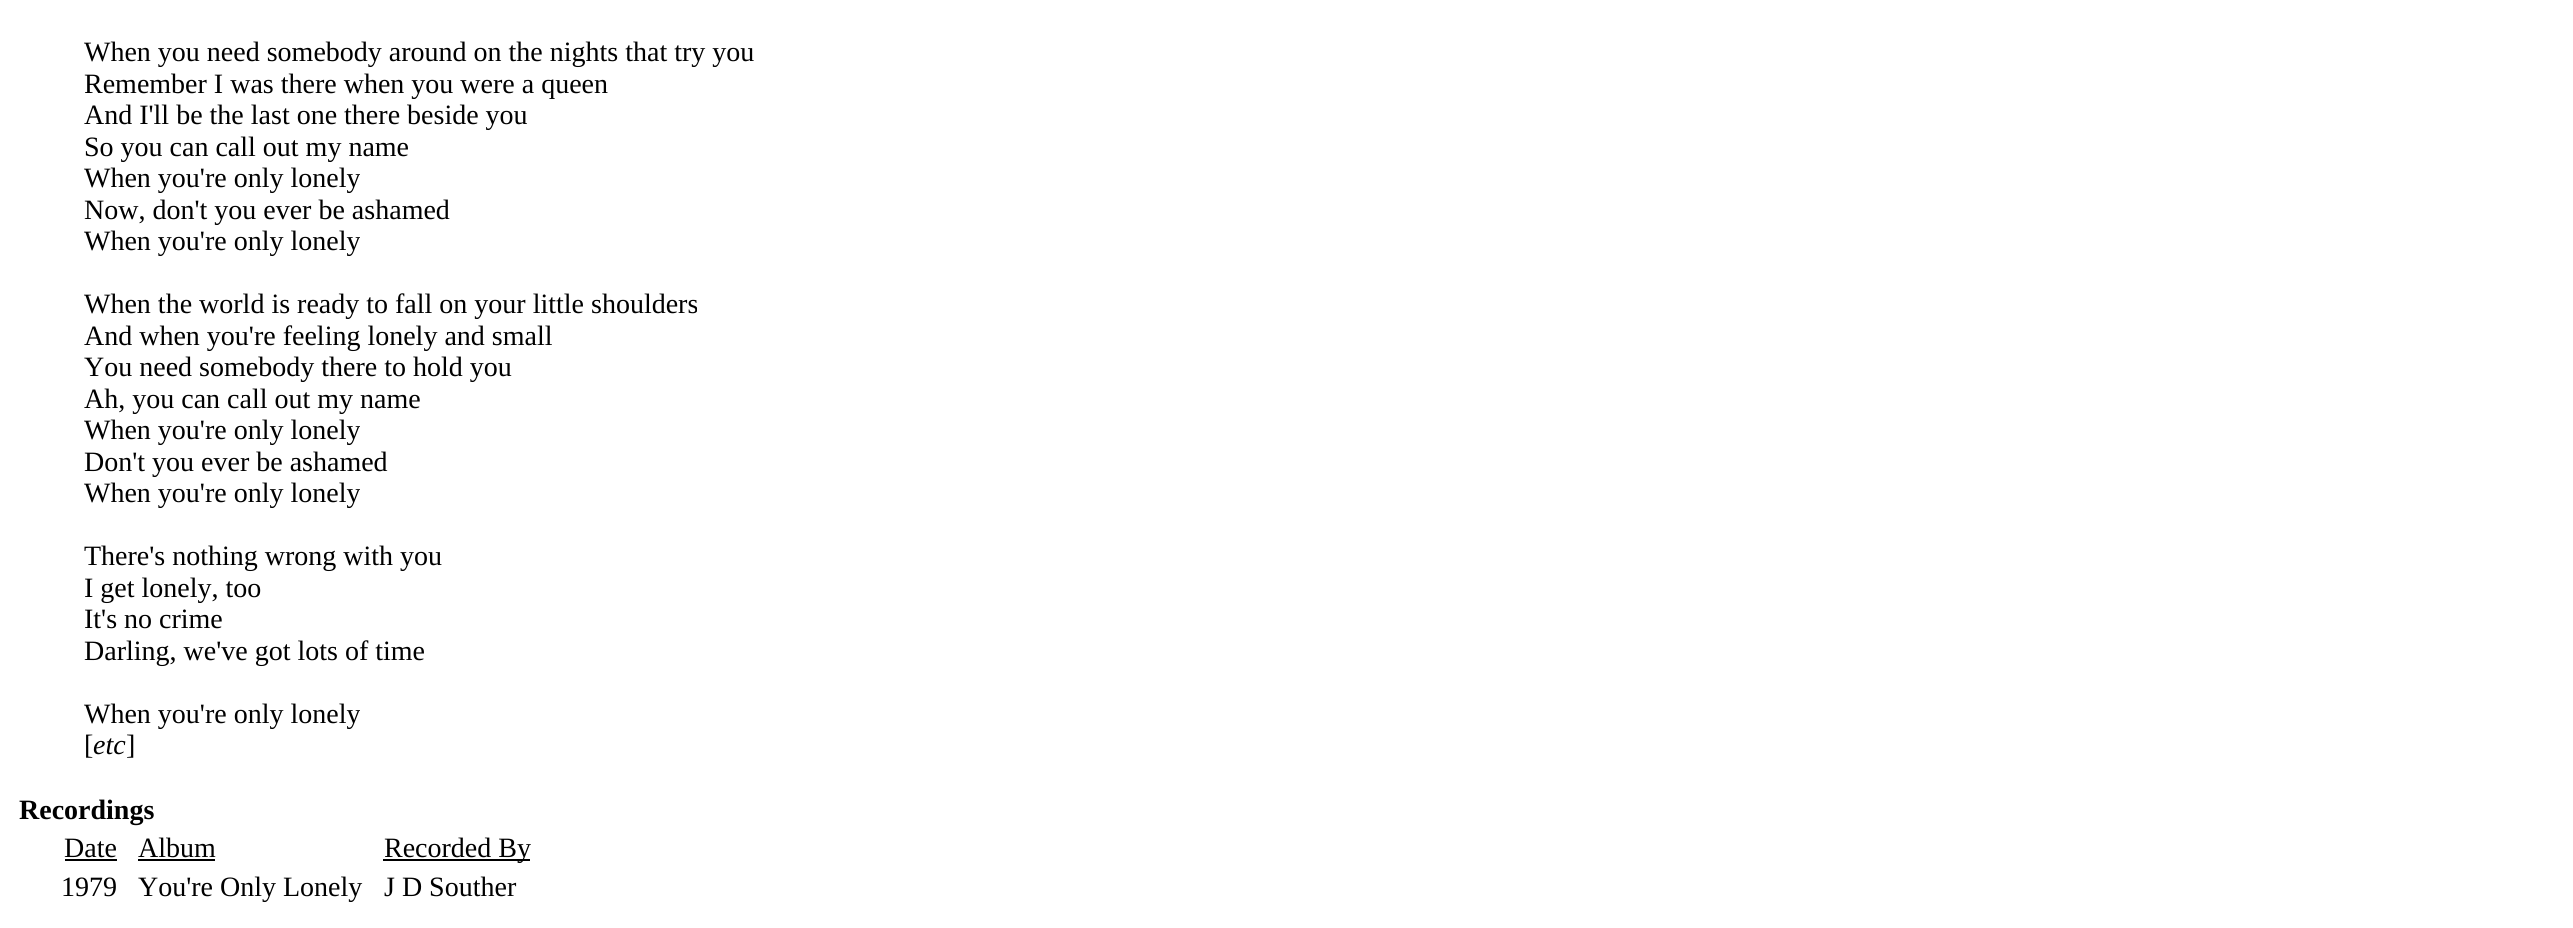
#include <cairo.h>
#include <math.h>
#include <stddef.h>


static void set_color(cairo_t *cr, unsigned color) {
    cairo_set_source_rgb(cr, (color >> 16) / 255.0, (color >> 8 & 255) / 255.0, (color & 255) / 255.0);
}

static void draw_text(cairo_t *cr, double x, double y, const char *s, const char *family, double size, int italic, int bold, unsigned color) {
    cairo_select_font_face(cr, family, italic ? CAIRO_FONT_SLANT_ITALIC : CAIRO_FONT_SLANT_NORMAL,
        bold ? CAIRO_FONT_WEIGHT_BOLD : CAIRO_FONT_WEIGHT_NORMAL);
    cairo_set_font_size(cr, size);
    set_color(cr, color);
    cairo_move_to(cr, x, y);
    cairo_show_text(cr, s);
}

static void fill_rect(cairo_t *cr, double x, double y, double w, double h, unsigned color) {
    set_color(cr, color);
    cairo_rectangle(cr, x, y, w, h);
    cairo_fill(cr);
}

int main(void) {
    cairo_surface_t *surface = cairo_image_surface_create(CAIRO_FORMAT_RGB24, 2573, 928);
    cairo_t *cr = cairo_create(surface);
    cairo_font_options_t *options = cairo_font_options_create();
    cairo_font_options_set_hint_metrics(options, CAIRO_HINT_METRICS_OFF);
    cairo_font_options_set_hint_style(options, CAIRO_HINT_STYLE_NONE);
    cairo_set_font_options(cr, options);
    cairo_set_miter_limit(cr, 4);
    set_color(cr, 0xFFFFFF);
    cairo_paint(cr);
    draw_text(cr, 84, 61, "When you need somebody around on the nights that try you", "Liberation Serif", 28, 0, 0, 0x000000);
    draw_text(cr, 84, 93, "Remember I was there when you were a queen", "Liberation Serif", 28, 0, 0, 0x000000);
    draw_text(cr, 84, 124, "And I'll be the last one there beside you", "Liberation Serif", 28, 0, 0, 0x000000);
    draw_text(cr, 84, 156, "So you can call out my name", "Liberation Serif", 28, 0, 0, 0x000000);
    draw_text(cr, 84, 187, "When you're only lonely", "Liberation Serif", 28, 0, 0, 0x000000);
    draw_text(cr, 84, 219, "Now, don't you ever be ashamed", "Liberation Serif", 28, 0, 0, 0x000000);
    draw_text(cr, 84, 250, "When you're only lonely", "Liberation Serif", 28, 0, 0, 0x000000);
    draw_text(cr, 84, 313, "When the world is ready to fall on your little shoulders", "Liberation Serif", 28, 0, 0, 0x000000);
    draw_text(cr, 84, 345, "And when you're feeling lonely and small", "Liberation Serif", 28, 0, 0, 0x000000);
    draw_text(cr, 84, 376, "You need somebody there to hold you", "Liberation Serif", 28, 0, 0, 0x000000);
    draw_text(cr, 84, 408, "Ah, you can call out my name", "Liberation Serif", 28, 0, 0, 0x000000);
    draw_text(cr, 84, 439, "When you're only lonely", "Liberation Serif", 28, 0, 0, 0x000000);
    draw_text(cr, 84, 471, "Don't you ever be ashamed", "Liberation Serif", 28, 0, 0, 0x000000);
    draw_text(cr, 84, 502, "When you're only lonely", "Liberation Serif", 28, 0, 0, 0x000000);
    draw_text(cr, 84, 565, "There's nothing wrong with you", "Liberation Serif", 28, 0, 0, 0x000000);
    draw_text(cr, 84, 597, "I get lonely, too", "Liberation Serif", 28, 0, 0, 0x000000);
    draw_text(cr, 84, 628, "It's no crime", "Liberation Serif", 28, 0, 0, 0x000000);
    draw_text(cr, 84, 660, "Darling, we've got lots of time", "Liberation Serif", 28, 0, 0, 0x000000);
    draw_text(cr, 84, 723, "When you're only lonely", "Liberation Serif", 28, 0, 0, 0x000000);
    draw_text(cr, 84, 754, "[", "Liberation Serif", 28, 0, 0, 0x000000);
    draw_text(cr, 93, 754, "etc", "Liberation Serif", 28, 1, 0, 0x000000);
    draw_text(cr, 126, 754, "]", "Liberation Serif", 28, 0, 0, 0x000000);
    draw_text(cr, 19, 819, "Recordings", "Liberation Serif", 28, 0, 1, 0x000000);
    draw_text(cr, 64, 857, "Date", "Liberation Serif", 28, 0, 0, 0x000000);
    fill_rect(cr, 65, 859, 52, 2, 0x000000);
    draw_text(cr, 138, 857, "Album", "Liberation Serif", 28, 0, 0, 0x000000);
    fill_rect(cr, 138, 859, 77, 2, 0x000000);
    fill_rect(cr, 383, 859, 147, 2, 0x000000);
    draw_text(cr, 384, 857, "Recorded By", "Liberation Serif", 28, 0, 0, 0x000000);
    draw_text(cr, 61, 896, "1979", "Liberation Serif", 28, 0, 0, 0x000000);
    draw_text(cr, 138, 896, "You're Only Lonely", "Liberation Serif", 28, 0, 0, 0x000000);
    draw_text(cr, 384, 896, "J D Souther", "Liberation Serif", 28, 0, 0, 0x000000);
    cairo_surface_write_to_png(surface, "output.png");
    cairo_font_options_destroy(options);
    cairo_destroy(cr);
    cairo_surface_destroy(surface);
    return 0;
}
